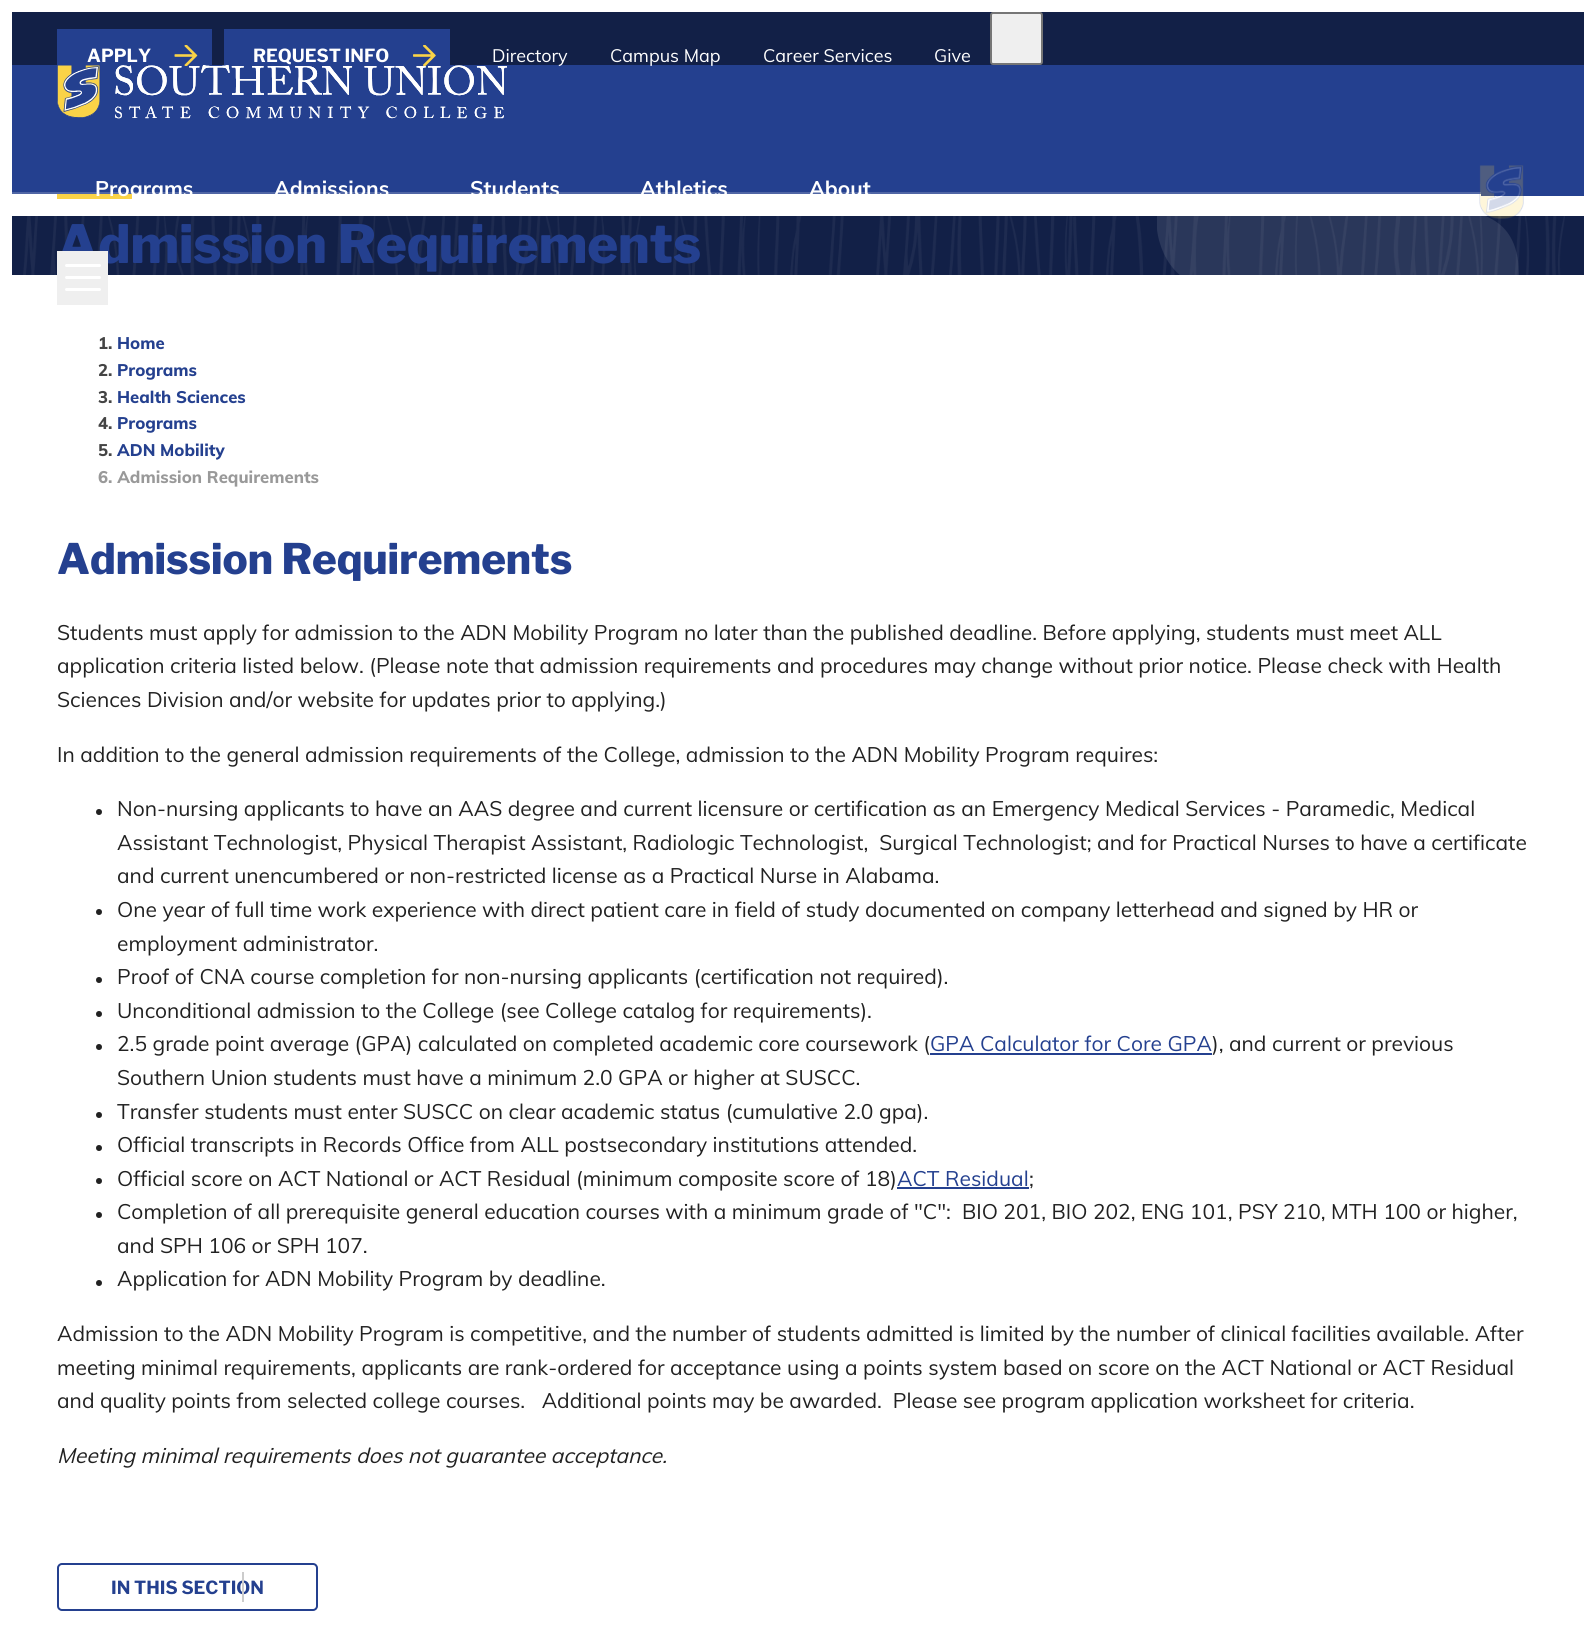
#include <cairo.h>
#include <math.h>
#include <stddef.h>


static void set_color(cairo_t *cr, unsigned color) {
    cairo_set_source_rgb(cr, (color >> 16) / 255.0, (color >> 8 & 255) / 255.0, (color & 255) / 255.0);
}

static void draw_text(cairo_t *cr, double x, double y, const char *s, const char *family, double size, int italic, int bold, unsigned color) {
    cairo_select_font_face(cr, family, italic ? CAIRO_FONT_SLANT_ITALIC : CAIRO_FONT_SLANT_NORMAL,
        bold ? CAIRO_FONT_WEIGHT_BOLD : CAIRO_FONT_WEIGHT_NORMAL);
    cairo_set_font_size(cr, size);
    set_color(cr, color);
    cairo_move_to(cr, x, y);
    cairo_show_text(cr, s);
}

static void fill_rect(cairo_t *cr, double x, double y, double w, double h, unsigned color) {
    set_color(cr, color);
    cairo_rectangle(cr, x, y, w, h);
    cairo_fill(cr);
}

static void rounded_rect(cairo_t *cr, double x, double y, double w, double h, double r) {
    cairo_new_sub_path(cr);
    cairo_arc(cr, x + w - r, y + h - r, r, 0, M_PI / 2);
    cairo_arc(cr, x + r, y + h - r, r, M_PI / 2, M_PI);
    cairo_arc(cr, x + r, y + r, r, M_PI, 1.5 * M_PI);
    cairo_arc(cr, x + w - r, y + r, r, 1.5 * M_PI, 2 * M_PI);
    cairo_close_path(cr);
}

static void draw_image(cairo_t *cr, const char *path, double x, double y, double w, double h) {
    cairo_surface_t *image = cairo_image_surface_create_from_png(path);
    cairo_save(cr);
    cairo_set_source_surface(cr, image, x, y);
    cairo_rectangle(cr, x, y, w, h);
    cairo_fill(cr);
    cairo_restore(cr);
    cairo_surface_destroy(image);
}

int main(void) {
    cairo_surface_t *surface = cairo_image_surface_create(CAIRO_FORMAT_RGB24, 1595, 1630);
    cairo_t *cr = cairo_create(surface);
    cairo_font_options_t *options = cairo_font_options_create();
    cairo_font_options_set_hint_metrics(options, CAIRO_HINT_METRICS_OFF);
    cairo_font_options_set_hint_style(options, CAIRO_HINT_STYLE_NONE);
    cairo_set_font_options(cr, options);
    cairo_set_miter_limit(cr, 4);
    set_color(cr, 0xFFFFFF);
    cairo_paint(cr);
    fill_rect(cr, 12, 65, 1572, 127, 0x24408F);
    fill_rect(cr, 12, 192, 1469, 2, 0x5066A5);
    fill_rect(cr, 12, 12, 1572, 53, 0x122047);
    fill_rect(cr, 57, 29, 155, 36, 0x24408F);
    draw_text(cr, 87, 62, "APPLY", "Libre Franklin", 18, 0, 1, 0xFFFFFF);
    draw_image(cr, "assets/img1.png", 174, 45, 24, 21);
    fill_rect(cr, 224, 29, 226, 36, 0x24408F);
    draw_text(cr, 253, 62, "REQUEST INFO", "Libre Franklin", 18, 0, 1, 0xFFFFFF);
    draw_image(cr, "assets/img2.png", 413, 45, 23, 21);
    draw_text(cr, 492, 62, "Directory", "Muli", 18, 0, 0, 0xFFFFFF);
    draw_text(cr, 610, 62, "Campus Map", "Muli", 18, 0, 0, 0xFFFFFF);
    draw_text(cr, 763, 62, "Career Services", "Muli", 18, 0, 0, 0xFFFFFF);
    draw_text(cr, 934, 62, "Give", "Muli", 18, 0, 0, 0xFFFFFF);
    set_color(cr, 0xEFEFEF);
    rounded_rect(cr, 991, 13, 51, 51, 2);
    cairo_fill_preserve(cr);
    set_color(cr, 0x767676);
    cairo_stroke(cr);
    draw_image(cr, "assets/img3.png", 57, 65, 450, 54);
    fill_rect(cr, 57, 194, 75, 5, 0xFAD347);
    draw_text(cr, 95, 196, "Programs", "Muli", 21, 0, 1, 0xFFFFFF);
    draw_text(cr, 274, 196, "Admissions", "Muli", 21, 0, 1, 0xFFFFFF);
    draw_text(cr, 470, 196, "Students", "Muli", 21, 0, 1, 0xFFFFFF);
    draw_text(cr, 640, 196, "Athletics", "Muli", 21, 0, 1, 0xFFFFFF);
    draw_text(cr, 809, 196, "About", "Muli", 21, 0, 1, 0xFFFFFF);
    fill_rect(cr, 1481, 192, 103, 4, 0x24408F);
    fill_rect(cr, 12, 216, 1572, 59, 0x122047);
    draw_image(cr, "assets/img5.png", 23, 216, 1542, 59);
    draw_image(cr, "assets/img6.png", 1157, 216, 362, 59);
    draw_image(cr, "assets/img4.png", 1479, 165, 45, 54);
    draw_text(cr, 57, 263, "Admission Requirements", "Libre Franklin ExtraBold", 52.5, 0, 0, 0x24408F);
    fill_rect(cr, 57, 251, 51, 54, 0xEFEFEF);
    set_color(cr, 0xFFFFFF);
    rounded_rect(cr, 65, 276, 36, 3, 1.5);
    cairo_fill(cr);
    rounded_rect(cr, 65, 264, 36, 3, 1.5);
    cairo_fill(cr);
    rounded_rect(cr, 65, 288, 36, 3, 1.5);
    cairo_fill(cr);
    draw_text(cr, 98, 349, "1.", "Muli ExtraBold", 16.75, 0, 0, 0x444444);
    draw_text(cr, 117, 349, "Home", "Muli ExtraBold", 16.75, 0, 0, 0x24408F);
    draw_text(cr, 98, 376, "2.", "Muli ExtraBold", 16.75, 0, 0, 0x444444);
    draw_text(cr, 117, 376, "Programs", "Muli ExtraBold", 16.75, 0, 0, 0x24408F);
    draw_text(cr, 98, 403, "3.", "Muli ExtraBold", 16.75, 0, 0, 0x444444);
    draw_text(cr, 117, 403, "Health Sciences", "Muli ExtraBold", 16.75, 0, 0, 0x24408F);
    draw_text(cr, 98, 429, "4.", "Muli ExtraBold", 16.75, 0, 0, 0x444444);
    draw_text(cr, 117, 429, "Programs", "Muli ExtraBold", 16.75, 0, 0, 0x24408F);
    draw_text(cr, 98, 456, "5.", "Muli ExtraBold", 16.75, 0, 0, 0x444444);
    draw_text(cr, 117, 456, "ADN Mobility", "Muli ExtraBold", 16.75, 0, 0, 0x24408F);
    draw_text(cr, 98, 483, "6. Admission Requirements", "Muli ExtraBold", 16.75, 0, 0, 0x999999);
    draw_text(cr, 57, 574, "Admission Requirements", "Libre Franklin ExtraBold", 42, 0, 0, 0x24408F);
    draw_text(cr, 57, 640, "Students must apply for admission to the ADN Mobility Program no later than the published deadline. Before applying, students must meet ALL", "Muli", 21, 0, 0, 0x212121);
    draw_text(cr, 57, 673, "application criteria listed below. (Please note that admission requirements and procedures may change without prior notice. Please check with Health", "Muli", 21, 0, 0, 0x212121);
    draw_text(cr, 57, 707, "Sciences Division and/or website for updates prior to applying.)", "Muli", 21, 0, 0, 0x212121);
    draw_text(cr, 57, 762, "In addition to the general admission requirements of the College, admission to the ADN Mobility Program requires:", "Muli", 21, 0, 0, 0x212121);
    cairo_new_path(cr);
    cairo_arc(cr, 99, 812, 3, 0, 2 * M_PI);
    cairo_fill(cr);
    draw_text(cr, 117, 816, "Non-nursing applicants to have an AAS degree and current licensure or certification as an Emergency Medical Services - Paramedic, Medical", "Muli", 21, 0, 0, 0x212121);
    draw_text(cr, 117, 850, "Assistant Technologist, Physical Therapist Assistant, Radiologic Technologist,  Surgical Technologist; and for Practical Nurses to have a certificate", "Muli", 21, 0, 0, 0x212121);
    draw_text(cr, 117, 883, "and current unencumbered or non-restricted license as a Practical Nurse in Alabama.", "Muli", 21, 0, 0, 0x212121);
    cairo_new_path(cr);
    cairo_arc(cr, 99, 912, 3, 0, 2 * M_PI);
    cairo_fill(cr);
    draw_text(cr, 117, 917, "One year of full time work experience with direct patient care in field of study documented on company letterhead and signed by HR or", "Muli", 21, 0, 0, 0x212121);
    draw_text(cr, 117, 951, "employment administrator.", "Muli", 21, 0, 0, 0x212121);
    cairo_new_path(cr);
    cairo_arc(cr, 99, 980, 3, 0, 2 * M_PI);
    cairo_fill(cr);
    draw_text(cr, 117, 984, "Proof of CNA course completion for non-nursing applicants (certification not required).", "Muli", 21, 0, 0, 0x212121);
    cairo_new_path(cr);
    cairo_arc(cr, 99, 1014, 3, 0, 2 * M_PI);
    cairo_fill(cr);
    draw_text(cr, 117, 1018, "Unconditional admission to the College (see College catalog for requirements).", "Muli", 21, 0, 0, 0x212121);
    cairo_new_path(cr);
    cairo_arc(cr, 99, 1047, 3, 0, 2 * M_PI);
    cairo_fill(cr);
    draw_text(cr, 117, 1051, "2.5 grade point average (GPA) calculated on completed academic core coursework (", "Muli", 21, 0, 0, 0x212121);
    draw_text(cr, 930, 1051, "GPA Calculator for Core GPA", "Muli", 21, 0, 0, 0x24408F);
    fill_rect(cr, 930, 1053, 282, 2, 0x24408F);
    draw_text(cr, 1212, 1051, "), and current or previous", "Muli", 21, 0, 0, 0x212121);
    draw_text(cr, 117, 1085, "Southern Union students must have a minimum 2.0 GPA or higher at SUSCC.", "Muli", 21, 0, 0, 0x212121);
    cairo_new_path(cr);
    cairo_arc(cr, 99, 1115, 3, 0, 2 * M_PI);
    cairo_fill(cr);
    draw_text(cr, 117, 1119, "Transfer students must enter SUSCC on clear academic status (cumulative 2.0 gpa).", "Muli", 21, 0, 0, 0x212121);
    cairo_new_path(cr);
    cairo_arc(cr, 99, 1148, 3, 0, 2 * M_PI);
    cairo_fill(cr);
    draw_text(cr, 117, 1152, "Official transcripts in Records Office from ALL postsecondary institutions attended.", "Muli", 21, 0, 0, 0x212121);
    cairo_new_path(cr);
    cairo_arc(cr, 99, 1181, 3, 0, 2 * M_PI);
    cairo_fill(cr);
    draw_text(cr, 117, 1186, "Official score on ACT National or ACT Residual (minimum composite score of 18)", "Muli", 21, 0, 0, 0x212121);
    draw_text(cr, 897, 1186, "ACT Residual", "Muli", 21, 0, 0, 0x24408F);
    fill_rect(cr, 897, 1187, 132, 2, 0x24408F);
    draw_text(cr, 1029, 1186, ";", "Muli", 21, 0, 0, 0x212121);
    cairo_new_path(cr);
    cairo_arc(cr, 99, 1215, 3, 0, 2 * M_PI);
    cairo_fill(cr);
    draw_text(cr, 117, 1219, "Completion of all prerequisite general education courses with a minimum grade of \"C\":  BIO 201, BIO 202, ENG 101, PSY 210, MTH 100 or higher,", "Muli", 21, 0, 0, 0x212121);
    draw_text(cr, 117, 1253, "and SPH 106 or SPH 107.", "Muli", 21, 0, 0, 0x212121);
    cairo_new_path(cr);
    cairo_arc(cr, 99, 1283, 3, 0, 2 * M_PI);
    cairo_fill(cr);
    draw_text(cr, 117, 1286, "Application for ADN Mobility Program by deadline.", "Muli", 21, 0, 0, 0x212121);
    draw_text(cr, 57, 1341, "Admission to the ADN Mobility Program is competitive, and the number of students admitted is limited by the number of clinical facilities available. After", "Muli", 21, 0, 0, 0x212121);
    draw_text(cr, 57, 1375, "meeting minimal requirements, applicants are rank-ordered for acceptance using a points system based on score on the ACT National or ACT Residual", "Muli", 21, 0, 0, 0x212121);
    draw_text(cr, 57, 1408, "and quality points from selected college courses.   Additional points may be awarded.  Please see program application worksheet for criteria.", "Muli", 21, 0, 0, 0x212121);
    draw_text(cr, 57, 1463, "Meeting minimal requirements does not guarantee acceptance.", "Muli", 21, 1, 0, 0x212121);
    rounded_rect(cr, 58, 1564, 259, 46, 4);
    set_color(cr, 0x24408F);
    cairo_stroke(cr);
    draw_text(cr, 111, 1594, "IN THIS SECTION", "Libre Franklin", 18, 0, 1, 0x24408F);
    fill_rect(cr, 242, 1572, 2, 30, 0xCCCCCC);
    cairo_surface_write_to_png(surface, "output.png");
    cairo_font_options_destroy(options);
    cairo_destroy(cr);
    cairo_surface_destroy(surface);
    return 0;
}
